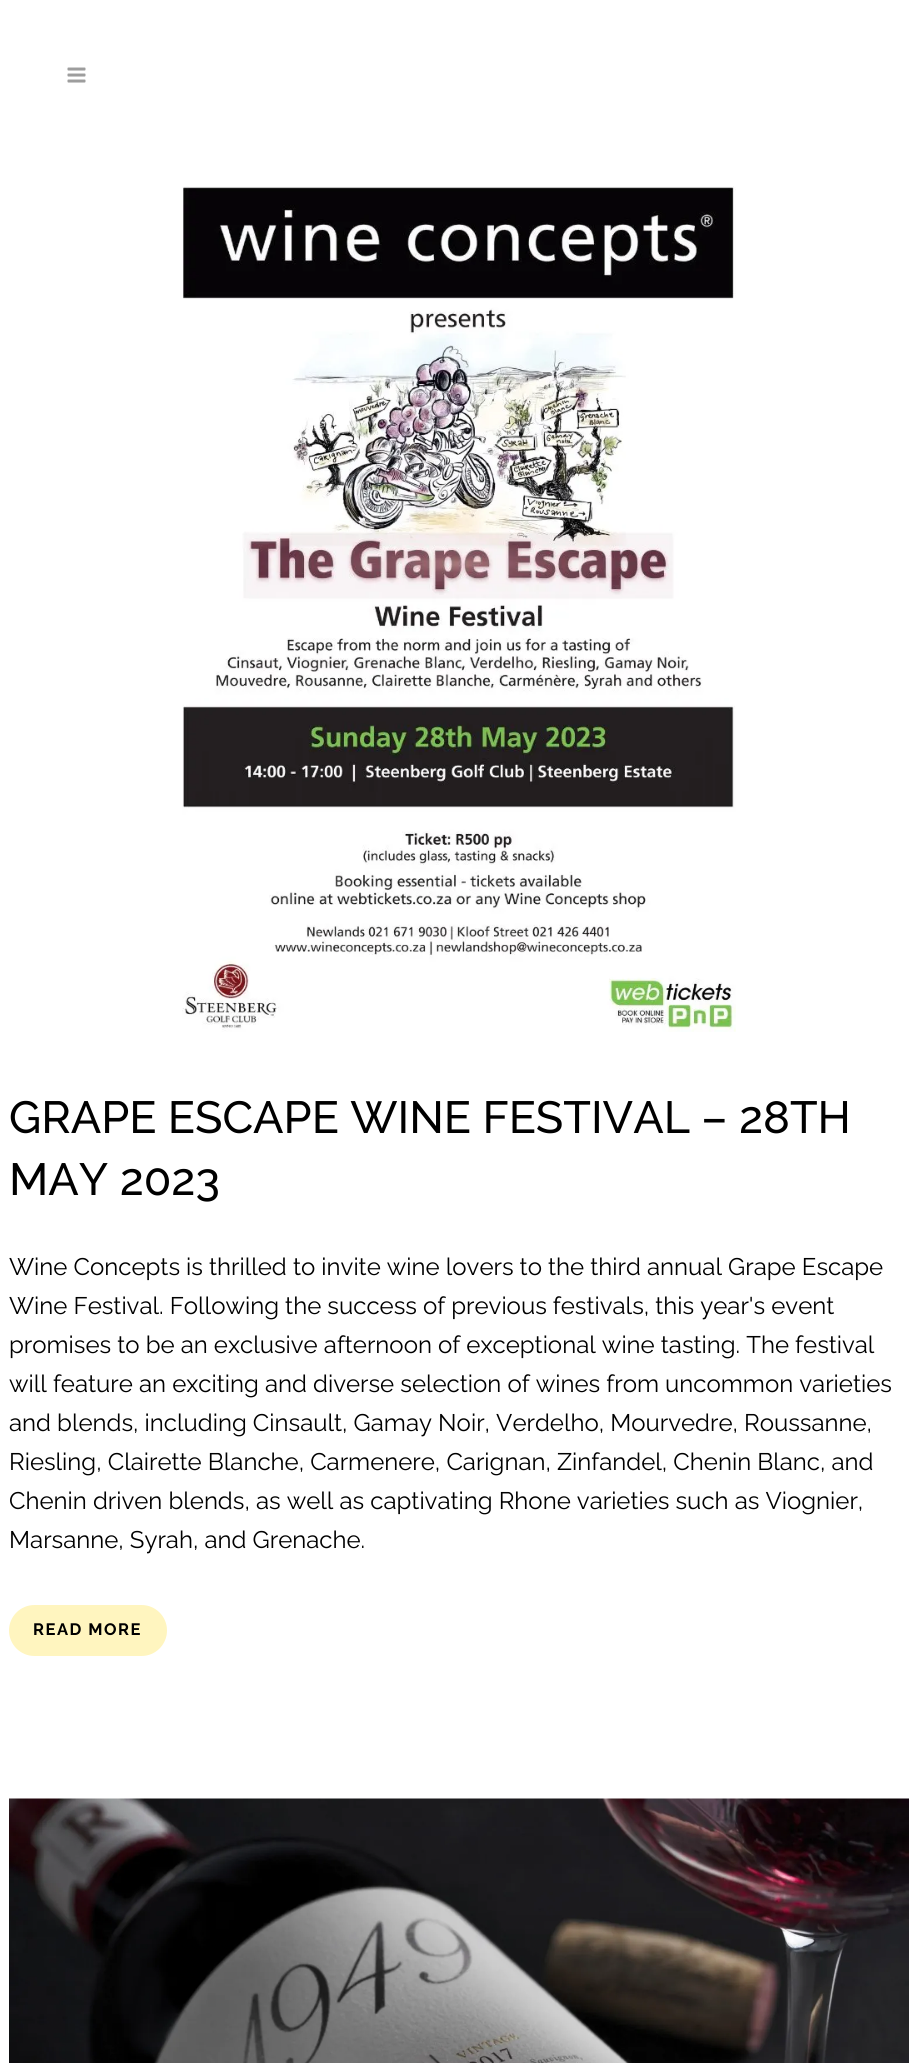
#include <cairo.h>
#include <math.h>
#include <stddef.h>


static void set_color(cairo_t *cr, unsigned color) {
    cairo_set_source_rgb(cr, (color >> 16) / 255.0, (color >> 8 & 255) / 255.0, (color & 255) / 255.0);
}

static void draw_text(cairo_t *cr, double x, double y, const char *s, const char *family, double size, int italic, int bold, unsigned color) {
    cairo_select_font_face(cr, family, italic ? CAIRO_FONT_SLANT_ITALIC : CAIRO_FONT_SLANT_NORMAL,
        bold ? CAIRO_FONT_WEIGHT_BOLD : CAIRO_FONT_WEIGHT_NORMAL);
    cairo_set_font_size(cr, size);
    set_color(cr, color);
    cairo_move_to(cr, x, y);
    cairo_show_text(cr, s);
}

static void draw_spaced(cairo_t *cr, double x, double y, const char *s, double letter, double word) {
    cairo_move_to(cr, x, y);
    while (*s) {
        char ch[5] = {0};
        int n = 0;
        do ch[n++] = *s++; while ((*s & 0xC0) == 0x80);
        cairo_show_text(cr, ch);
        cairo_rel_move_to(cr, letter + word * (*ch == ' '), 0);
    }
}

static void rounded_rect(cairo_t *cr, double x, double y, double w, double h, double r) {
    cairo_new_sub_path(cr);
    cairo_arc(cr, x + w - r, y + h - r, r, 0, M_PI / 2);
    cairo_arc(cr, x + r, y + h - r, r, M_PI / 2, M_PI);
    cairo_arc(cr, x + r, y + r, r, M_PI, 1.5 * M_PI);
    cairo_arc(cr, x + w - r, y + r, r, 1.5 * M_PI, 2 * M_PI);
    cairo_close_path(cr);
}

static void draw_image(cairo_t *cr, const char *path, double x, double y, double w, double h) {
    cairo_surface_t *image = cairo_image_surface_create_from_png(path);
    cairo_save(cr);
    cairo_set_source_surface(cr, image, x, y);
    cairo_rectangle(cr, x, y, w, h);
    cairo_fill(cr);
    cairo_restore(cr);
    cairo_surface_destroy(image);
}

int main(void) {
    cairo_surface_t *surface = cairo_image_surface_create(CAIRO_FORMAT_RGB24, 918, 2063);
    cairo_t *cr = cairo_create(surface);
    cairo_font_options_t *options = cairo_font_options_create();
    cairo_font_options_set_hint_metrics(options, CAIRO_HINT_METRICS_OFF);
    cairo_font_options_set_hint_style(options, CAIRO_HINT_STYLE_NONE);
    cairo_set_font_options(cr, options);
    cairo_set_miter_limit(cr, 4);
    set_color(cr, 0xFFFFFF);
    cairo_paint(cr);
    draw_image(cr, "assets/img1.png", 67, 67, 19, 16);
    draw_image(cr, "assets/img2.png", 182, 186, 554, 846);
    draw_text(cr, 9, 1133, "GRAPE ESCAPE WINE FESTIVAL – 28TH", "Raleway Medium", 45, 0, 0, 0x000000);
    draw_text(cr, 9, 1195, "MAY 2023", "Raleway Medium", 45, 0, 0, 0x000000);
    draw_text(cr, 9, 1275, "Wine Concepts is thrilled to invite wine lovers to the third annual Grape Escape", "Raleway", 24, 0, 0, 0x000000);
    draw_text(cr, 9, 1314, "Wine Festival. Following the success of previous festivals, this year's event", "Raleway", 24, 0, 0, 0x000000);
    draw_text(cr, 9, 1353, "promises to be an exclusive afternoon of exceptional wine tasting. The festival", "Raleway", 24, 0, 0, 0x000000);
    draw_text(cr, 9, 1392, "will feature an exciting and diverse selection of wines from uncommon varieties", "Raleway", 24, 0, 0, 0x000000);
    draw_text(cr, 9, 1431, "and blends, including Cinsault, Gamay Noir, Verdelho, Mourvedre, Roussanne,", "Raleway", 24, 0, 0, 0x000000);
    draw_text(cr, 9, 1470, "Riesling, Clairette Blanche, Carmenere, Carignan, Zinfandel, Chenin Blanc, and", "Raleway", 24, 0, 0, 0x000000);
    draw_text(cr, 9, 1509, "Chenin driven blends, as well as captivating Rhone varieties such as Viognier,", "Raleway", 24, 0, 0, 0x000000);
    draw_text(cr, 9, 1548, "Marsanne, Syrah, and Grenache.", "Raleway", 24, 0, 0, 0x000000);
    set_color(cr, 0xFFF5BF);
    rounded_rect(cr, 10.5, 1606.5, 155, 48, 24);
    cairo_fill_preserve(cr);
    cairo_set_line_width(cr, 3);
    cairo_stroke(cr);
    cairo_select_font_face(cr, "Raleway", CAIRO_FONT_SLANT_NORMAL, CAIRO_FONT_WEIGHT_BOLD);
    cairo_set_font_size(cr, 16.5);
    set_color(cr, 0x000000);
    draw_spaced(cr, 33, 1635, "READ MORE", 1.5, 0);
    draw_image(cr, "assets/img3.png", 9, 1798, 900, 265);
    cairo_surface_write_to_png(surface, "output.png");
    cairo_font_options_destroy(options);
    cairo_destroy(cr);
    cairo_surface_destroy(surface);
    return 0;
}
